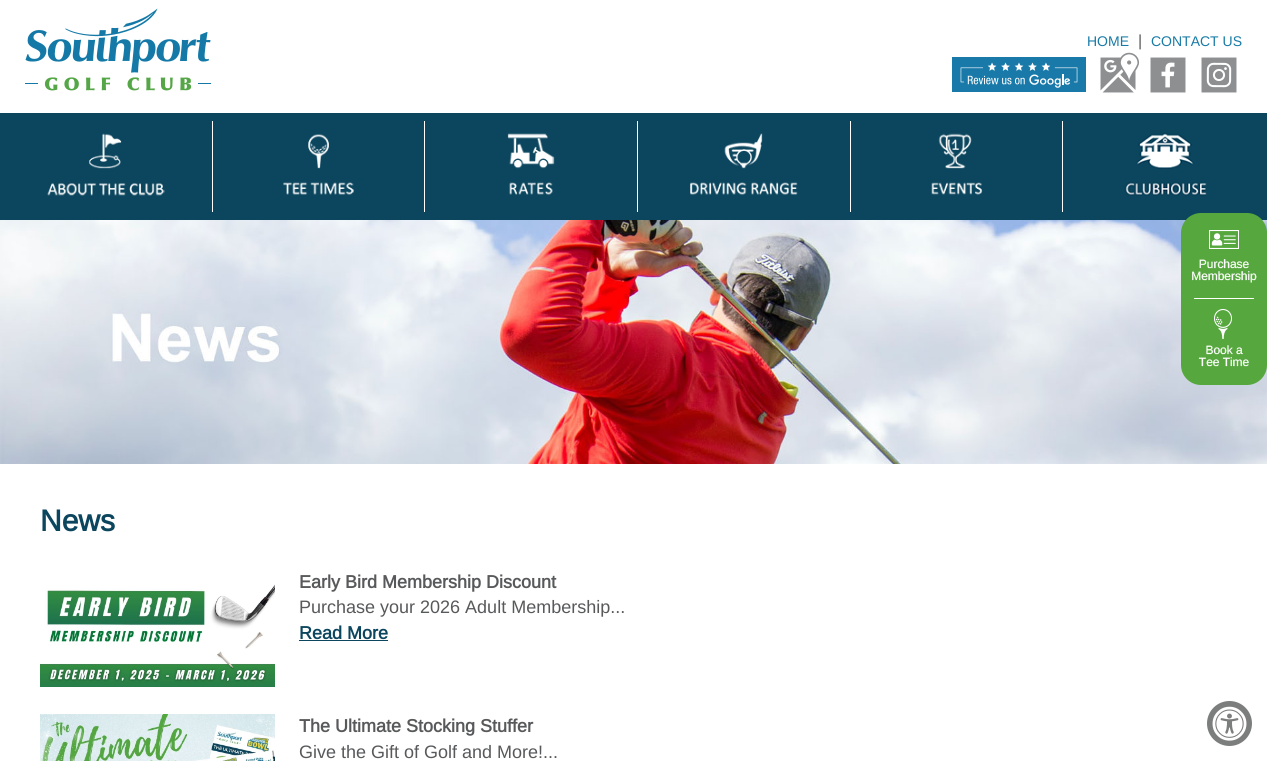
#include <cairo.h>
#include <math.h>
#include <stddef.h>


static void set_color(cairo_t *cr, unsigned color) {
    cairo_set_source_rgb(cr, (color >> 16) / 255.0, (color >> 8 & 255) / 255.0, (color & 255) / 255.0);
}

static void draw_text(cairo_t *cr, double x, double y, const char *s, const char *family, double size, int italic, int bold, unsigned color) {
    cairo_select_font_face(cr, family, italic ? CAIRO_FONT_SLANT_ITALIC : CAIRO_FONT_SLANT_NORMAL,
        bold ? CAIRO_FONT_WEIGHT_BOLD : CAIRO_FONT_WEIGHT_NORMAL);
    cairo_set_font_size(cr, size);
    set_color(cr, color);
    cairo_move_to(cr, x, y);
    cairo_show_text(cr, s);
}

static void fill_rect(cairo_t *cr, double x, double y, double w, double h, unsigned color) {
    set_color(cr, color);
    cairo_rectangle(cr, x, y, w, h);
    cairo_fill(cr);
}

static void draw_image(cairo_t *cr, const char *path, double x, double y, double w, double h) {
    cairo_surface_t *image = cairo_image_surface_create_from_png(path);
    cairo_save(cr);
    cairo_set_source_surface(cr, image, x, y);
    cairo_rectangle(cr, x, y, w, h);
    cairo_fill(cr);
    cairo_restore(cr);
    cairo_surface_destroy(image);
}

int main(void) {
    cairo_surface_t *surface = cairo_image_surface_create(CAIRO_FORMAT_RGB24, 1267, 761);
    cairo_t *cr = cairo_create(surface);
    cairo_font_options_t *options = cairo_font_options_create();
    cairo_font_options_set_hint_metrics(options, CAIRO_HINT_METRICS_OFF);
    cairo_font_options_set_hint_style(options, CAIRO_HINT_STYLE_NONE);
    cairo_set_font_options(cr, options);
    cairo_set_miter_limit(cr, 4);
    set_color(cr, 0xFFFFFF);
    cairo_paint(cr);
    draw_image(cr, "assets/img1.png", 25, 8, 186, 83);
    draw_text(cr, 1087, 46, "HOME", "Arimo", 14, 0, 0, 0x187BA6);
    draw_text(cr, 1138, 46, "|", "Arimo", 16, 0, 0, 0x58595B);
    draw_text(cr, 1151, 46, "CONTACT US", "Arimo", 14, 0, 0, 0x187BA6);
    draw_image(cr, "assets/img2.png", 952, 57, 134, 35);
    draw_image(cr, "assets/img3.png", 1100, 52, 40, 41);
    draw_image(cr, "assets/img4.png", 1150, 57, 36, 36);
    draw_image(cr, "assets/img5.png", 1201, 57, 36, 36);
    fill_rect(cr, 0, 113, 1267, 107, 0x0C465E);
    fill_rect(cr, 212, 121, 1, 91, 0xFFFFFF);
    draw_image(cr, "assets/img6.png", 47, 133, 118, 63);
    fill_rect(cr, 424, 121, 1, 91, 0xFFFFFF);
    draw_image(cr, "assets/img7.png", 283, 134, 71, 61);
    fill_rect(cr, 637, 121, 1, 91, 0xFFFFFF);
    draw_image(cr, "assets/img8.png", 507, 133, 48, 62);
    fill_rect(cr, 850, 121, 1, 91, 0xFFFFFF);
    draw_image(cr, "assets/img9.png", 690, 133, 108, 62);
    fill_rect(cr, 1062, 121, 1, 91, 0xFFFFFF);
    draw_image(cr, "assets/img10.png", 931, 133, 52, 62);
    draw_image(cr, "assets/img11.png", 1124, 132, 83, 64);
    draw_image(cr, "assets/img14.png", 0, 220, 1267, 244);
    set_color(cr, 0x56A73E);
    cairo_new_path(cr);
    cairo_move_to(cr, 1201, 213);
    cairo_line_to(cr, 1247, 213);
    cairo_curve_to(cr, 1258, 213, 1267, 222, 1267, 233);
    cairo_line_to(cr, 1267, 299);
    cairo_line_to(cr, 1181, 299);
    cairo_line_to(cr, 1181, 233);
    cairo_curve_to(cr, 1181, 222, 1190, 213, 1201, 213);
    cairo_close_path(cr);
    cairo_fill(cr);
    draw_image(cr, "assets/img12.png", 1192, 230, 65, 53);
    fill_rect(cr, 1194, 298, 60, 1, 0xFFFFFF);
    set_color(cr, 0x56A73E);
    cairo_new_path(cr);
    cairo_move_to(cr, 1181, 299);
    cairo_line_to(cr, 1267, 299);
    cairo_line_to(cr, 1267, 365);
    cairo_curve_to(cr, 1267, 376, 1258, 385, 1247, 385);
    cairo_line_to(cr, 1201, 385);
    cairo_curve_to(cr, 1190, 385, 1181, 376, 1181, 365);
    cairo_close_path(cr);
    cairo_fill(cr);
    draw_image(cr, "assets/img13.png", 1198, 309, 51, 58);
    draw_text(cr, 40, 531, "News", "Arimo", 30, 0, 1, 0x0C465E);
    draw_image(cr, "assets/img15.png", 40, 584, 235, 103);
    draw_text(cr, 299, 588, "Early Bird Membership Discount", "Arimo", 18, 0, 1, 0x58595B);
    draw_text(cr, 299, 613, "Purchase your 2026 Adult Membership...", "Arimo", 18, 0, 0, 0x58595B);
    draw_text(cr, 299, 639, "Read More", "Arimo", 18, 0, 1, 0x0C465E);
    fill_rect(cr, 299, 640, 89, 1, 0x0C465E);
    draw_image(cr, "assets/img16.png", 40, 714, 235, 47);
    draw_text(cr, 299, 732, "The Ultimate Stocking Stuffer", "Arimo", 18, 0, 1, 0x58595B);
    draw_text(cr, 299, 758, "Give the Gift of Golf and More!...", "Arimo", 18, 0, 0, 0x58595B);
    set_color(cr, 0x7C7D7D);
    cairo_new_path(cr);
    cairo_arc(cr, 1229.5, 723.5, 22.5, 0, 2 * M_PI);
    cairo_fill(cr);
    draw_image(cr, "assets/img17.png", 1212, 706, 35, 35);
    cairo_surface_write_to_png(surface, "output.png");
    cairo_font_options_destroy(options);
    cairo_destroy(cr);
    cairo_surface_destroy(surface);
    return 0;
}
